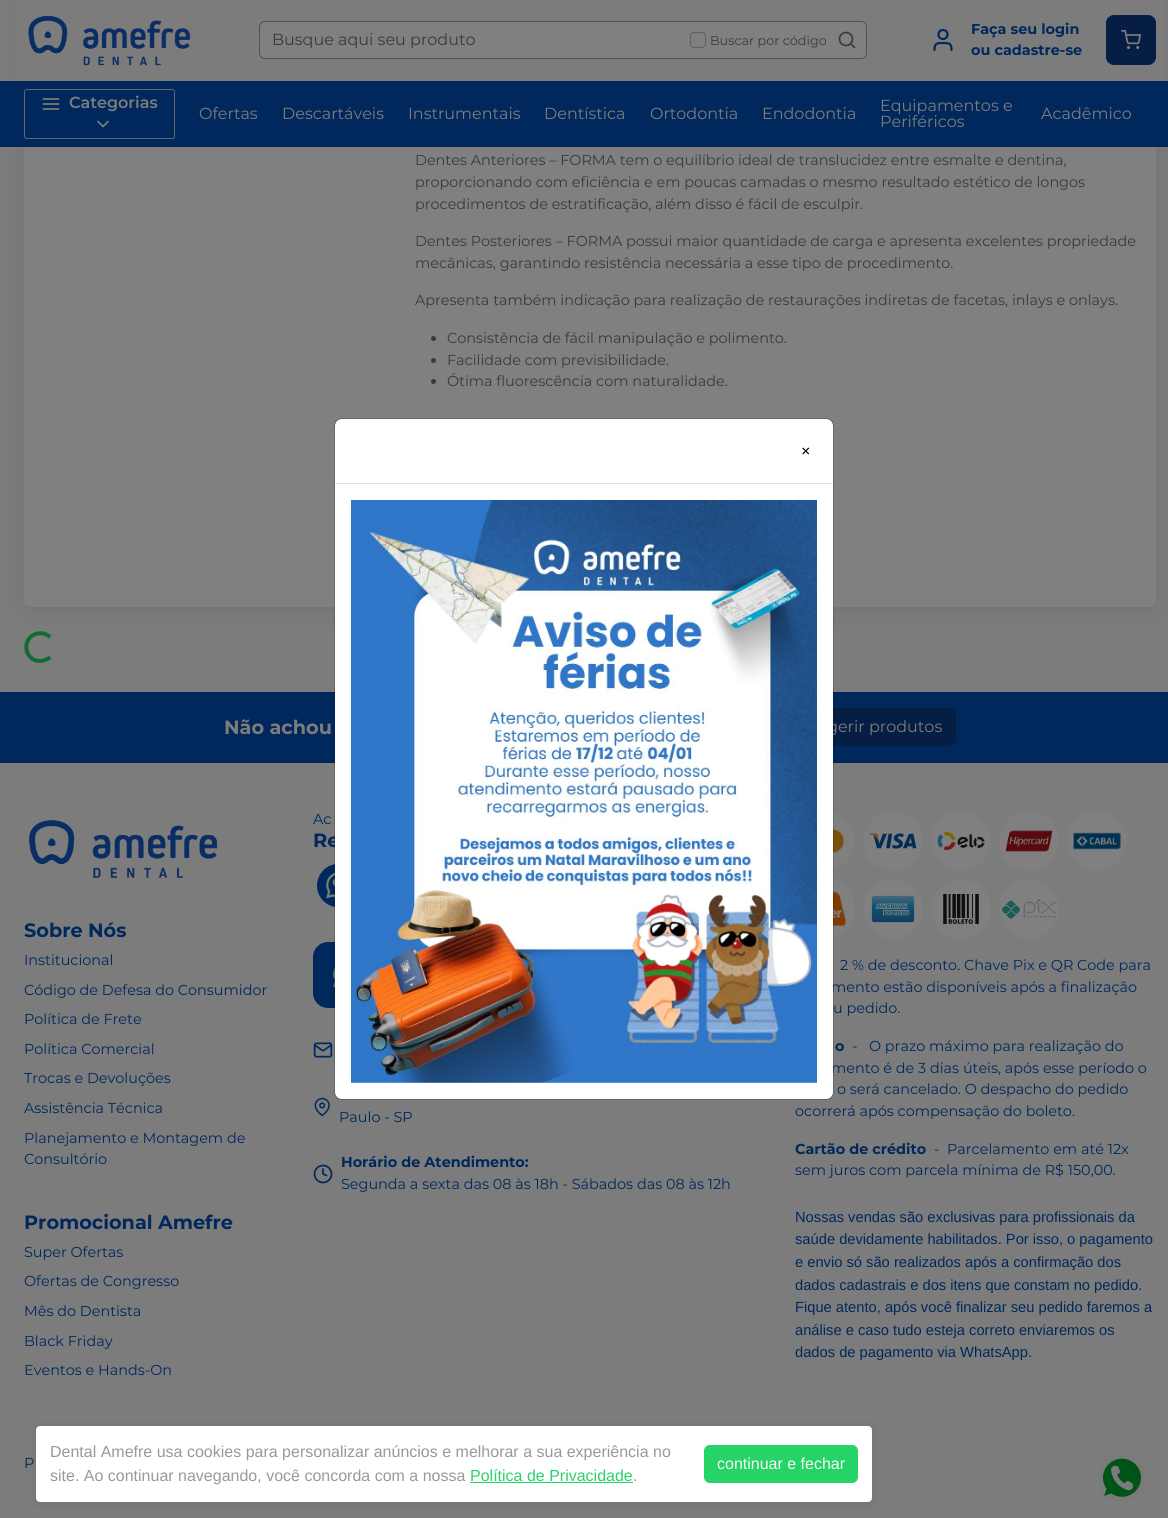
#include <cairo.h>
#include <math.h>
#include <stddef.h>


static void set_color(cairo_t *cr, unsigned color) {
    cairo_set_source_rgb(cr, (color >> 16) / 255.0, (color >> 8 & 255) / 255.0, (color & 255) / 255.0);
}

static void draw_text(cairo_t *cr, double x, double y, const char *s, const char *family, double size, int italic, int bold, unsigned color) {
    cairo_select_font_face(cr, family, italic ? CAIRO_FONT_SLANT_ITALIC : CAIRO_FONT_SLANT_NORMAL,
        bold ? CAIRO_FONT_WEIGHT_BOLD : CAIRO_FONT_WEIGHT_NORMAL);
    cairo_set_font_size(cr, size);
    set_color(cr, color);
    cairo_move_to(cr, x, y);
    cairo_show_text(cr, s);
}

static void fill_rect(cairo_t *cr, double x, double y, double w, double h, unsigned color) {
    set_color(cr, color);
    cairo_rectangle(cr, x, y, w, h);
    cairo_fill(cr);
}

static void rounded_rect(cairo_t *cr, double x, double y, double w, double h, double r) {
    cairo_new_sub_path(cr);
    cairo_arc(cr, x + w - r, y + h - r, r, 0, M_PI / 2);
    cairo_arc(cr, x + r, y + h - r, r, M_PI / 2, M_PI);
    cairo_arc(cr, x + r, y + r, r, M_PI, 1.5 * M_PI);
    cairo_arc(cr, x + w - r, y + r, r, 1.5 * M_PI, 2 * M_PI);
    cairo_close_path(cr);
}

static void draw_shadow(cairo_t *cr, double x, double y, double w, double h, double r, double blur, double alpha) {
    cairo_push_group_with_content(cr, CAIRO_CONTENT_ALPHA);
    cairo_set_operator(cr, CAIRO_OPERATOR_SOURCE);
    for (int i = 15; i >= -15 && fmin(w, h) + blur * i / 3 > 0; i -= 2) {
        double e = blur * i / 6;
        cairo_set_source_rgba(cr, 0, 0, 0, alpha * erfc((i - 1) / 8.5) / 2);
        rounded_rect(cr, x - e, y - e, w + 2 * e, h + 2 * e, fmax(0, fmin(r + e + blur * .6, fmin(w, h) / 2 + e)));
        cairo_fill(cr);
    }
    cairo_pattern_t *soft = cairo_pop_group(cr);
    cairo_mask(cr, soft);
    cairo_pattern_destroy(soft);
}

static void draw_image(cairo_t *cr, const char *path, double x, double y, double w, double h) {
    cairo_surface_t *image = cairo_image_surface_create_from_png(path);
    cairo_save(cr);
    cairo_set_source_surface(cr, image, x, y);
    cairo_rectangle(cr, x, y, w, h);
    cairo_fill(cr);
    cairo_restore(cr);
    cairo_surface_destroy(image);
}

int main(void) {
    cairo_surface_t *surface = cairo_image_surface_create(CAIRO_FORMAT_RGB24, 1168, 1518);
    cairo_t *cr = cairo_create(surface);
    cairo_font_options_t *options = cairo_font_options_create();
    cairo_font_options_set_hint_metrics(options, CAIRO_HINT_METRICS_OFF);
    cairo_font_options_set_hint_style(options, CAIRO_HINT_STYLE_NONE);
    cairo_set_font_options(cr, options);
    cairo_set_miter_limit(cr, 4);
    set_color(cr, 0x7C7C7C);
    cairo_paint(cr);
    cairo_new_path(cr);
    cairo_move_to(cr, 50, 657);
    cairo_curve_to(cr, 47.5, 659.5, 43.5, 661, 40, 661);
    cairo_curve_to(cr, 23.5, 661, 21, 636.5, 37.5, 633.5);
    cairo_curve_to(cr, 42, 632.5, 46.5, 634, 50, 637);
    set_color(cr, 0x136A33);
    cairo_set_line_width(cr, 4);
    cairo_stroke(cr);
    set_color(cr, 0x111518);
    draw_shadow(cr, 24, -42, 1132, 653, 6, 12, 0.1);
    set_color(cr, 0x808080);
    rounded_rect(cr, 24, -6, 1132, 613, 6);
    cairo_fill(cr);
    fill_rect(cr, 16, 0, 1148, 81, 0x7C7C7C);
    draw_image(cr, "assets/img1.png", 28, 15, 163, 51);
    set_color(cr, 0x808080);
    rounded_rect(cr, 259.5, 21.5, 607, 37, 5.5);
    cairo_fill_preserve(cr);
    set_color(cr, 0x525156);
    cairo_set_line_width(cr, 1);
    cairo_stroke(cr);
    draw_text(cr, 272, 45, "Busque aqui seu produto", "Montserrat", 16, 0, 0, 0x363B3F);
    cairo_new_path(cr);
    cairo_arc(cr, 846, 39, 6.5, 0, 2 * M_PI);
    cairo_set_line_width(cr, 1.7);
    cairo_stroke(cr);
    cairo_new_path(cr);
    cairo_move_to(cr, 854.5, 47.5);
    cairo_line_to(cr, 851, 44);
    cairo_set_line_cap(cr, CAIRO_LINE_CAP_ROUND);
    cairo_set_line_join(cr, CAIRO_LINE_JOIN_ROUND);
    cairo_stroke(cr);
    rounded_rect(cr, 690.5, 32.5, 15, 15, 3.5);
    set_color(cr, 0x606060);
    cairo_set_line_width(cr, 1);
    cairo_set_line_cap(cr, CAIRO_LINE_CAP_BUTT);
    cairo_set_line_join(cr, CAIRO_LINE_JOIN_MITER);
    cairo_stroke(cr);
    draw_text(cr, 710, 45, "Buscar por código", "Montserrat", 12.75, 0, 0, 0x363B3F);
    cairo_new_path(cr);
    cairo_move_to(cr, 951.5, 50);
    cairo_curve_to(cr, 951.5, 43, 949, 43, 943, 43);
    cairo_curve_to(cr, 937, 43, 934.5, 43, 934.5, 50);
    set_color(cr, 0x00285C);
    cairo_set_line_width(cr, 2.2);
    cairo_set_line_cap(cr, CAIRO_LINE_CAP_ROUND);
    cairo_set_line_join(cr, CAIRO_LINE_JOIN_ROUND);
    cairo_stroke(cr);
    cairo_arc(cr, 943, 34.5, 4.5, 0, 2 * M_PI);
    cairo_set_line_cap(cr, CAIRO_LINE_CAP_BUTT);
    cairo_set_line_join(cr, CAIRO_LINE_JOIN_MITER);
    cairo_stroke(cr);
    draw_text(cr, 971, 34, "Faça seu login", "Montserrat", 14.4, 0, 1, 0x00285C);
    draw_text(cr, 971, 55, "ou cadastre-se", "Montserrat", 14.4, 0, 1, 0x00285C);
    set_color(cr, 0x071E44);
    rounded_rect(cr, 1106.5, 15.5, 49, 49, 7.5);
    cairo_fill_preserve(cr);
    cairo_set_line_width(cr, 1);
    cairo_stroke(cr);
    draw_image(cr, "assets/img2.png", 1121, 30, 20, 20);
    fill_rect(cr, 0, 81, 1168, 66, 0x00285C);
    rounded_rect(cr, 24.5, 89.5, 150, 49, 2.5);
    set_color(cr, 0x666666);
    cairo_stroke(cr);
    draw_image(cr, "assets/img3.png", 42, 98, 18, 12);
    draw_text(cr, 69, 108, "Categorias", "Montserrat SemiBold", 16, 0, 0, 0x7C7C7C);
    cairo_new_path(cr);
    cairo_move_to(cr, 98, 121.5);
    cairo_line_to(cr, 103, 126.5);
    cairo_line_to(cr, 108, 121.5);
    cairo_set_line_width(cr, 1.7);
    cairo_set_line_cap(cr, CAIRO_LINE_CAP_ROUND);
    cairo_set_line_join(cr, CAIRO_LINE_JOIN_ROUND);
    cairo_stroke(cr);
    draw_text(cr, 199, 119, "Ofertas", "Montserrat", 16, 0, 0, 0x7C7C7C);
    draw_text(cr, 282, 119, "Descartáveis", "Montserrat", 16, 0, 0, 0x7C7C7C);
    draw_text(cr, 408, 119, "Instrumentais", "Montserrat", 16, 0, 0, 0x7C7C7C);
    draw_text(cr, 544, 119, "Dentística", "Montserrat", 16, 0, 0, 0x7C7C7C);
    draw_text(cr, 650, 119, "Ortodontia", "Montserrat", 16, 0, 0, 0x7C7C7C);
    draw_text(cr, 762, 119, "Endodontia", "Montserrat", 16, 0, 0, 0x7C7C7C);
    draw_text(cr, 880, 111, "Equipamentos e", "Montserrat", 16, 0, 0, 0x7C7C7C);
    draw_text(cr, 880, 127, "Periféricos", "Montserrat", 16, 0, 0, 0x7C7C7C);
    draw_text(cr, 1041, 119, "Acadêmico", "Montserrat", 16, 0, 0, 0x7C7C7C);
    draw_text(cr, 415, 165, "Dentes Anteriores – FORMA tem o equilíbrio ideal de translucidez entre esmalte e dentina,", "Montserrat", 14.4, 0, 0, 0x363B3F);
    draw_text(cr, 415, 187, "proporcionando com eficiência e em poucas camadas o mesmo resultado estético de longos", "Montserrat", 14.4, 0, 0, 0x363B3F);
    draw_text(cr, 415, 209, "procedimentos de estratificação, além disso é fácil de esculpir.", "Montserrat", 14.4, 0, 0, 0x363B3F);
    draw_text(cr, 415, 246, "Dentes Posteriores – FORMA possui maior quantidade de carga e apresenta excelentes propriedade", "Montserrat", 14.4, 0, 0, 0x363B3F);
    draw_text(cr, 415, 268, "mecânicas, garantindo resistência necessária a esse tipo de procedimento.", "Montserrat", 14.4, 0, 0, 0x363B3F);
    draw_text(cr, 415, 305, "Apresenta também indicação para realização de restaurações indiretas de facetas, inlays e onlays.", "Montserrat", 14.4, 0, 0, 0x363B3F);
    cairo_new_path(cr);
    cairo_arc(cr, 433.5, 338.5, 2.5, 0, 2 * M_PI);
    cairo_fill(cr);
    draw_text(cr, 447, 343, "Consistência de fácil manipulação e polimento.", "Montserrat", 14.4, 0, 0, 0x363B3F);
    cairo_new_path(cr);
    cairo_arc(cr, 433.5, 360.5, 2.5, 0, 2 * M_PI);
    cairo_fill(cr);
    draw_text(cr, 447, 365, "Facilidade com previsibilidade.", "Montserrat", 14.4, 0, 0, 0x363B3F);
    cairo_new_path(cr);
    cairo_arc(cr, 433.5, 381.5, 2.5, 0, 2 * M_PI);
    cairo_fill(cr);
    draw_text(cr, 447, 386, "Ótima fluorescência com naturalidade.", "Montserrat", 14.4, 0, 0, 0x363B3F);
    fill_rect(cr, 0, 692, 1168, 70, 0x00285C);
    fill_rect(cr, 0, 762, 1168, 1, 0x002453);
    draw_text(cr, 224, 734, "Não achou", "Montserrat", 19.25, 0, 1, 0x7C7C7C);
    set_color(cr, 0x071E44);
    rounded_rect(cr, 794, 708, 162, 38, 6);
    cairo_fill(cr);
    draw_text(cr, 827, 732, "gerir produtos", "Montserrat", 16, 0, 0, 0x7C7C7C);
    draw_image(cr, "assets/img4.png", 29, 820, 189, 58);
    draw_text(cr, 24, 937, "Sobre Nós", "Montserrat", 19.25, 0, 1, 0x00285C);
    draw_text(cr, 24, 965, "Institucional", "Montserrat", 14.4, 0, 0, 0x00285C);
    draw_text(cr, 24, 995, "Código de Defesa do Consumidor", "Montserrat", 14.4, 0, 0, 0x00285C);
    draw_text(cr, 24, 1024, "Política de Frete", "Montserrat", 14.4, 0, 0, 0x00285C);
    draw_text(cr, 24, 1054, "Política Comercial", "Montserrat", 14.4, 0, 0, 0x00285C);
    draw_text(cr, 24, 1083, "Trocas e Devoluções", "Montserrat", 14.4, 0, 0, 0x00285C);
    draw_text(cr, 24, 1113, "Assistência Técnica", "Montserrat", 14.4, 0, 0, 0x00285C);
    draw_text(cr, 24, 1143, "Planejamento e Montagem de", "Montserrat", 14.4, 0, 0, 0x00285C);
    draw_text(cr, 24, 1164, "Consultório", "Montserrat", 14.4, 0, 0, 0x00285C);
    draw_text(cr, 24, 1229, "Promocional Amefre", "Montserrat", 19.25, 0, 1, 0x00285C);
    draw_text(cr, 24, 1257, "Super Ofertas", "Montserrat", 14.4, 0, 0, 0x00285C);
    draw_text(cr, 24, 1286, "Ofertas de Congresso", "Montserrat", 14.4, 0, 0, 0x00285C);
    draw_text(cr, 24, 1316, "Mês do Dentista", "Montserrat", 14.4, 0, 0, 0x00285C);
    draw_text(cr, 24, 1346, "Black Friday", "Montserrat", 14.4, 0, 0, 0x00285C);
    draw_text(cr, 24, 1375, "Eventos e Hands-On", "Montserrat", 14.4, 0, 0, 0x00285C);
    draw_text(cr, 24, 1468, "P", "Montserrat", 14.4, 0, 0, 0x00285C);
    draw_text(cr, 313, 824, "Ac", "Montserrat", 14.4, 0, 0, 0x00285C);
    draw_text(cr, 313, 847, "Re", "Montserrat", 19.25, 0, 1, 0x00285C);
    draw_image(cr, "assets/img5.png", 317, 864, 18, 43);
    rounded_rect(cr, 313, 942, 233, 66, 15);
    cairo_fill(cr);
    draw_image(cr, "assets/img6.png", 333, 968, 2, 20);
    draw_image(cr, "assets/img7.png", 313, 1042, 20, 16);
    draw_image(cr, "assets/img8.png", 314, 1097, 16, 20);
    draw_text(cr, 339, 1122, "Paulo - SP", "Montserrat", 14.4, 0, 0, 0x00285C);
    cairo_new_path(cr);
    cairo_arc(cr, 323, 1174, 8.5, 0, 2 * M_PI);
    cairo_set_line_cap(cr, CAIRO_LINE_CAP_BUTT);
    cairo_set_line_join(cr, CAIRO_LINE_JOIN_MITER);
    cairo_stroke(cr);
    cairo_new_path(cr);
    cairo_move_to(cr, 323, 1169);
    cairo_line_to(cr, 323, 1174);
    cairo_line_to(cr, 326.5, 1175.5);
    cairo_set_line_cap(cr, CAIRO_LINE_CAP_ROUND);
    cairo_set_line_join(cr, CAIRO_LINE_JOIN_ROUND);
    cairo_stroke(cr);
    draw_text(cr, 341, 1167, "Horário de Atendimento:", "Montserrat", 14.4, 0, 1, 0x00285C);
    draw_text(cr, 341, 1189, "Segunda a sexta das 08 às 18h - Sábados das 08 às 12h", "Montserrat", 14.4, 0, 0, 0x00285C);
    draw_image(cr, "assets/img9.png", 833, 812, 22, 58);
    draw_image(cr, "assets/img10.png", 863, 811, 60, 60);
    draw_image(cr, "assets/img11.png", 931, 811, 60, 60);
    draw_image(cr, "assets/img12.png", 999, 811, 60, 60);
    draw_image(cr, "assets/img13.png", 1067, 811, 60, 60);
    draw_image(cr, "assets/img14.png", 833, 879, 22, 60);
    draw_image(cr, "assets/img15.png", 863, 879, 60, 60);
    draw_image(cr, "assets/img16.png", 931, 879, 60, 60);
    draw_image(cr, "assets/img17.png", 999, 879, 60, 60);
    draw_text(cr, 840, 970, "2 % de desconto. Chave Pix e QR Code para", "Montserrat", 14.4, 0, 0, 0x00285C);
    draw_text(cr, 831, 992, "mento estão disponíveis após a finalização", "Montserrat", 14.4, 0, 0, 0x00285C);
    draw_text(cr, 833, 1013, "u pedido.", "Montserrat", 14.4, 0, 0, 0x00285C);
    draw_text(cr, 835, 1051, "o", "Montserrat", 14.4, 0, 1, 0x00285C);
    draw_text(cr, 852, 1051, "-", "Montserrat", 14.4, 0, 0, 0x00285C);
    draw_text(cr, 869, 1051, "O prazo máximo para realização do", "Montserrat", 14.4, 0, 0, 0x00285C);
    draw_text(cr, 831, 1073, "mento é de 3 dias úteis, após esse período o", "Montserrat", 14.4, 0, 0, 0x00285C);
    draw_text(cr, 837, 1094, "o será cancelado. O despacho do pedido", "Montserrat", 14.4, 0, 0, 0x00285C);
    draw_text(cr, 795, 1116, "ocorrerá após compensação do boleto.", "Montserrat", 14.4, 0, 0, 0x00285C);
    draw_text(cr, 795, 1154, "Cartão de crédito", "Montserrat", 14.4, 0, 1, 0x00285C);
    draw_text(cr, 934, 1154, "-", "Montserrat", 14.4, 0, 0, 0x00285C);
    draw_text(cr, 947, 1154, "Parcelamento em até 12x", "Montserrat", 14.4, 0, 0, 0x00285C);
    draw_text(cr, 795, 1175, "sem juros com parcela mínima de R$ 150,00.", "Montserrat", 14.4, 0, 0, 0x00285C);
    draw_text(cr, 795, 1222, "Nossas vendas são exclusivas para profissionais da", "Liberation Sans", 14.7, 0, 0, 0x00285C);
    draw_text(cr, 795, 1244, "saúde devidamente habilitados. Por isso, o pagamento", "Liberation Sans", 14.7, 0, 0, 0x00285C);
    draw_text(cr, 795, 1267, "e envio só são realizados após a confirmação dos", "Liberation Sans", 14.7, 0, 0, 0x00285C);
    draw_text(cr, 795, 1290, "dados cadastrais e dos itens que constam no pedido.", "Liberation Sans", 14.7, 0, 0, 0x00285C);
    draw_text(cr, 795, 1312, "Fique atento, após você finalizar seu pedido faremos a", "Liberation Sans", 14.7, 0, 0, 0x00285C);
    draw_text(cr, 795, 1335, "análise e caso tudo esteja correto enviaremos os", "Liberation Sans", 14.7, 0, 0, 0x00285C);
    draw_text(cr, 795, 1357, "dados de pagamento via WhatsApp.", "Liberation Sans", 14.7, 0, 0, 0x00285C);
    draw_image(cr, "assets/img18.png", 1099, 1454, 46, 47);
    set_color(cr, 0x000000);
    draw_shadow(cr, 36, 1427, 836, 76, 4, 5, 0.1);
    set_color(cr, 0xFFFFFF);
    rounded_rect(cr, 36, 1426, 836, 76, 4);
    cairo_fill(cr);
    draw_text(cr, 50, 1457, "Dental Amefre usa cookies para personalizar anúncios e melhorar a sua experiência no", "Liberation Sans", 16, 0, 0, 0x999999);
    draw_text(cr, 50, 1481, "site. Ao continuar navegando, você concorda com a nossa", "Liberation Sans", 16, 0, 0, 0x999999);
    draw_text(cr, 470, 1481, "Política de Privacidade", "Liberation Sans", 16, 0, 0, 0x25D366);
    fill_rect(cr, 470, 1482, 163, 1, 0x25D366);
    draw_text(cr, 633, 1481, ".", "Liberation Sans", 16, 0, 0, 0x999999);
    set_color(cr, 0x25D366);
    rounded_rect(cr, 704.5, 1445.5, 153, 37, 5.5);
    cairo_fill_preserve(cr);
    cairo_set_line_width(cr, 1);
    cairo_set_line_cap(cr, CAIRO_LINE_CAP_BUTT);
    cairo_set_line_join(cr, CAIRO_LINE_JOIN_MITER);
    cairo_stroke(cr);
    draw_text(cr, 717, 1469, "continuar e fechar", "Liberation Sans", 16, 0, 0, 0xF7F7F7);
    set_color(cr, 0xFFFFFF);
    rounded_rect(cr, 335, 419, 498, 680, 7);
    cairo_fill(cr);
    rounded_rect(cr, 334.5, 418.5, 499, 681, 7.5);
    cairo_set_source_rgba(cr, 0, 0, 0, 0.18);
    cairo_stroke(cr);
    fill_rect(cr, 335, 483, 498, 1, 0xDEE2E6);
    draw_text(cr, 800, 458, "×", "Montserrat", 20, 0, 0, 0x000000);
    draw_image(cr, "assets/img19.png", 351, 500, 466, 583);
    cairo_surface_write_to_png(surface, "output.png");
    cairo_font_options_destroy(options);
    cairo_destroy(cr);
    cairo_surface_destroy(surface);
    return 0;
}
